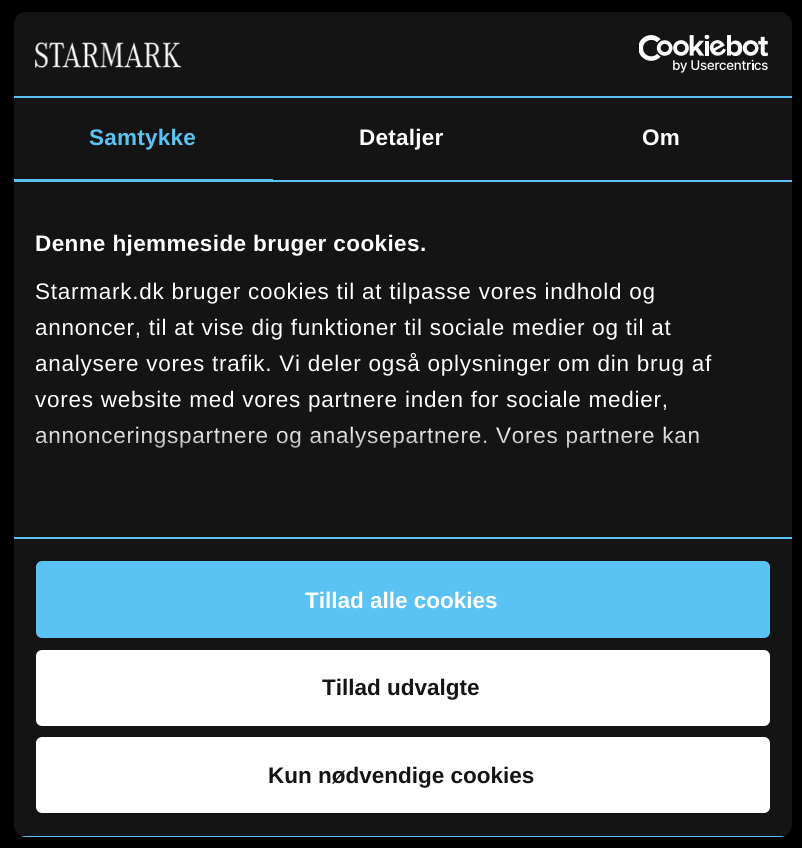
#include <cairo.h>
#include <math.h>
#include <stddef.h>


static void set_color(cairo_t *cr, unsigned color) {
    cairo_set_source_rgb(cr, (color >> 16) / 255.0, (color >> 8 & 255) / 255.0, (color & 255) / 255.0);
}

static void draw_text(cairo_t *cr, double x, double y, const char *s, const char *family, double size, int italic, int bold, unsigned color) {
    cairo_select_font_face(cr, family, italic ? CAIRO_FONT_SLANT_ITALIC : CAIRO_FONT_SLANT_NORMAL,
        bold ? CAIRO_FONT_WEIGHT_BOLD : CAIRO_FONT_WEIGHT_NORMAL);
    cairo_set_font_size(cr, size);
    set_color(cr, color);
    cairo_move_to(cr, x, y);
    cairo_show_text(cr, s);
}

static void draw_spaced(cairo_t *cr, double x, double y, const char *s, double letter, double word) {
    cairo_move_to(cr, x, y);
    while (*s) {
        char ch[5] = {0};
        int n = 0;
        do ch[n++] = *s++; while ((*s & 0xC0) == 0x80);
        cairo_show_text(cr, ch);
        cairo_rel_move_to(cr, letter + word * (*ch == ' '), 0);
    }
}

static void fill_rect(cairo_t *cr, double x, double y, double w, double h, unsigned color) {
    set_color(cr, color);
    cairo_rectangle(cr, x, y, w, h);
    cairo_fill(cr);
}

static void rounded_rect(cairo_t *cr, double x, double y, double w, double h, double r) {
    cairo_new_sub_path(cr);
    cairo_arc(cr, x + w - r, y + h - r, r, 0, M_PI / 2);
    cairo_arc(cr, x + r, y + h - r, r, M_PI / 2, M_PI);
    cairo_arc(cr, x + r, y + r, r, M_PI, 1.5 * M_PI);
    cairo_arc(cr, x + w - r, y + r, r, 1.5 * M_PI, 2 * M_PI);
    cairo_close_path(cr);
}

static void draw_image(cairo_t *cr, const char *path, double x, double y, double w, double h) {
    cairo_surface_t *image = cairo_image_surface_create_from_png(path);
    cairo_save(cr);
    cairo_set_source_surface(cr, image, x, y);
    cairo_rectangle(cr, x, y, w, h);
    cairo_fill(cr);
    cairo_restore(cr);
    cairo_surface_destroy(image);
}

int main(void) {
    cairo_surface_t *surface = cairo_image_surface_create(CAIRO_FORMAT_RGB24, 802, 848);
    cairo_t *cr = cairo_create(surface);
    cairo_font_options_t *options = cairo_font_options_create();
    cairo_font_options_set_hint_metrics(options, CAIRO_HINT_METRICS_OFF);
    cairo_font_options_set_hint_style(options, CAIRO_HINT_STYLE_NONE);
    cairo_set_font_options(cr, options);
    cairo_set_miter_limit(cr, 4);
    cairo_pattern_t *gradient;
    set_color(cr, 0x000000);
    cairo_paint(cr);
    set_color(cr, 0x141414);
    rounded_rect(cr, 14, 12, 778, 825, 12);
    cairo_fill(cr);
    fill_rect(cr, 14, 96, 778, 2, 0x5BC2F4);
    draw_image(cr, "assets/img1.png", 35, 42, 146, 26);
    draw_image(cr, "assets/img2.png", 639, 35, 130, 38);
    fill_rect(cr, 14, 180, 778, 2, 0x5BC2F4);
    fill_rect(cr, 14, 179, 259, 1, 0x5BC2F4);
    cairo_select_font_face(cr, "Liberation Sans", CAIRO_FONT_SLANT_NORMAL, CAIRO_FONT_WEIGHT_BOLD);
    cairo_set_font_size(cr, 22.5);
    draw_spaced(cr, 89, 145, "Samtykke", 0.25, 0);
    set_color(cr, 0xFFFFFF);
    draw_spaced(cr, 359, 145, "Detaljer", 0.25, 0);
    draw_spaced(cr, 642, 145, "Om", 0.25, 0);
    fill_rect(cr, 14, 537, 778, 2, 0x5BC2F4);
    set_color(cr, 0xFFFFFF);
    draw_spaced(cr, 35, 251, "Denne hjemmeside bruger cookies.", 0.4, 0);
    cairo_select_font_face(cr, "Liberation Sans", CAIRO_FONT_SLANT_NORMAL, CAIRO_FONT_WEIGHT_NORMAL);
    draw_spaced(cr, 35, 299, "Starmark.dk bruger cookies til at tilpasse vores indhold og", 0.75, 0);
    draw_spaced(cr, 35, 335, "annoncer, til at vise dig funktioner til sociale medier og til at", 0.75, 0);
    draw_spaced(cr, 35, 371, "analysere vores trafik. Vi deler også oplysninger om din brug af", 0.75, 0);
    draw_spaced(cr, 35, 407, "vores website med vores partnere inden for sociale medier,", 0.75, 0);
    draw_spaced(cr, 35, 443, "annonceringspartnere og analysepartnere. Vores partnere kan", 0.75, 0);
    gradient = cairo_pattern_create_linear(392, 537, 392, 425);
    cairo_pattern_add_color_stop_rgba(gradient, 0, 0.078, 0.078, 0.078, 1);
    cairo_pattern_add_color_stop_rgba(gradient, 0.5, 0.078, 0.078, 0.078, 0.8);
    cairo_pattern_add_color_stop_rgba(gradient, 1, 0.078, 0.078, 0.078, 0);
    cairo_set_source(cr, gradient);
    cairo_pattern_destroy(gradient);
    cairo_rectangle(cr, 35, 427, 664, 21);
    cairo_fill(cr);
    cairo_save(cr);
    rounded_rect(cr, 14, 12, 778, 825, 12);
    cairo_clip(cr);
    fill_rect(cr, 14, 836, 778, 1, 0x5BC2F4);
    cairo_restore(cr);
    set_color(cr, 0x5BC2F4);
    rounded_rect(cr, 37.5, 562.5, 731, 74, 4.5);
    cairo_fill_preserve(cr);
    cairo_set_line_width(cr, 3);
    cairo_stroke(cr);
    draw_text(cr, 305, 608, "Tillad alle cookies", "Liberation Sans", 22.5, 0, 1, 0xFFFFFF);
    rounded_rect(cr, 37.5, 651.5, 731, 73, 4.5);
    cairo_fill_preserve(cr);
    cairo_stroke(cr);
    draw_text(cr, 322, 695, "Tillad udvalgte", "Liberation Sans", 22.5, 0, 1, 0x141414);
    set_color(cr, 0xFFFFFF);
    rounded_rect(cr, 37.5, 738.5, 731, 73, 4.5);
    cairo_fill_preserve(cr);
    cairo_stroke(cr);
    draw_text(cr, 268, 783, "Kun nødvendige cookies", "Liberation Sans", 22.5, 0, 1, 0x141414);
    cairo_surface_write_to_png(surface, "output.png");
    cairo_font_options_destroy(options);
    cairo_destroy(cr);
    cairo_surface_destroy(surface);
    return 0;
}
